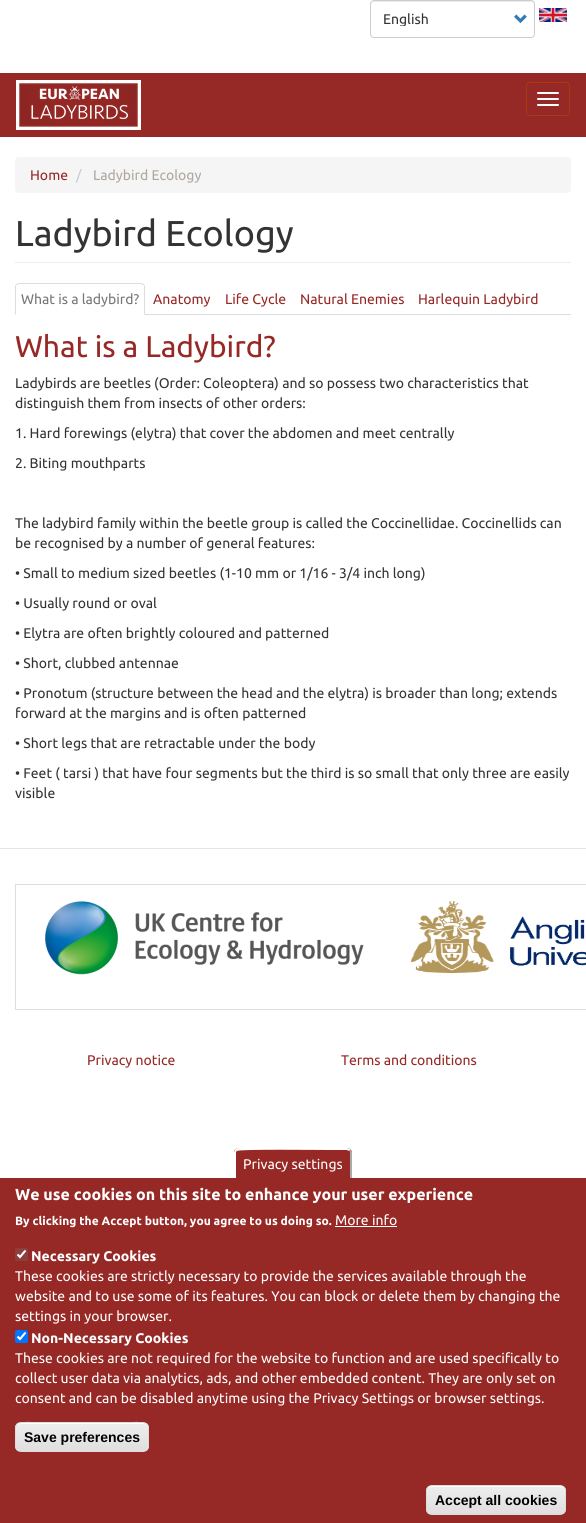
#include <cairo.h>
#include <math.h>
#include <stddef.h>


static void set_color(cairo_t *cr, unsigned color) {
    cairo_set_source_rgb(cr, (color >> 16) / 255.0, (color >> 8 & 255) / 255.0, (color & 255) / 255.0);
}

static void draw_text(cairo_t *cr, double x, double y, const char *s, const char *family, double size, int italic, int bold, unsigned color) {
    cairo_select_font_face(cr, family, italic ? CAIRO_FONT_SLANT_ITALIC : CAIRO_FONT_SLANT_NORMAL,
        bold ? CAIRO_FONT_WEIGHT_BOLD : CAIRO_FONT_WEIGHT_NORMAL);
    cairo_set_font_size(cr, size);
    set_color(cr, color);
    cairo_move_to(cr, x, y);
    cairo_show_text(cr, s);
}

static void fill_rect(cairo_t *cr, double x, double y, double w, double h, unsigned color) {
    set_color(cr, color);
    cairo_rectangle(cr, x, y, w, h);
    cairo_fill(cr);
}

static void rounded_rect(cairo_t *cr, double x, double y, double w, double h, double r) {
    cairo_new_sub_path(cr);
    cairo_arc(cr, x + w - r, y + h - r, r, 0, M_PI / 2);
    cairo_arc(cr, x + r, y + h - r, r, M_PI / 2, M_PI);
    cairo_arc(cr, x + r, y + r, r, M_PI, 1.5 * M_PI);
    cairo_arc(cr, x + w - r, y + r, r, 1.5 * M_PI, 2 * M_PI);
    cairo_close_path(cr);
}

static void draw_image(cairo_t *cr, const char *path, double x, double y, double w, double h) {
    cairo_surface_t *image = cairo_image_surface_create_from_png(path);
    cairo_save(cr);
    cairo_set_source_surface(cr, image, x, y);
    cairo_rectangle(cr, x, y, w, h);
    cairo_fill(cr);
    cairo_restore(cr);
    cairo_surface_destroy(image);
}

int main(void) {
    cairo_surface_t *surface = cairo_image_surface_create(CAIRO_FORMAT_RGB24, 586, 1523);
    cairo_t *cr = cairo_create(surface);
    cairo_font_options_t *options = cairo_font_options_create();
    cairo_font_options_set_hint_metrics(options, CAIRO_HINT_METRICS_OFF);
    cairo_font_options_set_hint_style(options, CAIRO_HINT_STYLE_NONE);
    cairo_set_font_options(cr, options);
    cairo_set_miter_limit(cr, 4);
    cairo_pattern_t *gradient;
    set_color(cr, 0xFFFFFF);
    cairo_paint(cr);
    set_color(cr, 0xECECEC);
    cairo_new_path(cr);
    cairo_move_to(cr, 374, 2);
    cairo_line_to(cr, 531, 2);
    cairo_curve_to(cr, 533, 2, 534, 3, 534, 5);
    cairo_curve_to(cr, 534, 3, 533, 1, 531, 1);
    cairo_line_to(cr, 374, 1);
    cairo_curve_to(cr, 372, 1, 371, 3, 371, 5);
    cairo_curve_to(cr, 371, 3, 372, 2, 374, 2);
    cairo_close_path(cr);
    cairo_fill(cr);
    rounded_rect(cr, 370.5, 0.5, 164, 37, 3.5);
    set_color(cr, 0xCCCCCC);
    cairo_set_line_width(cr, 1);
    cairo_stroke(cr);
    cairo_save(cr);
    cairo_rectangle(cr, 383, 12, 123, 14);
    cairo_clip(cr);
    draw_text(cr, 383, 24, "English", "Ubuntu", 14, 0, 0, 0x333333);
    cairo_restore(cr);
    draw_image(cr, "assets/img1.png", 514, 14, 13, 10);
    draw_image(cr, "assets/img2.png", 539, 8, 28, 14);
    fill_rect(cr, 0, 73, 586, 64, 0x962825);
    draw_image(cr, "assets/img3.png", 16, 80, 125, 50);
    rounded_rect(cr, 526.5, 82.5, 43, 33, 3.5);
    set_color(cr, 0xAC3911);
    cairo_stroke(cr);
    set_color(cr, 0xFFFFFF);
    rounded_rect(cr, 537, 92, 22, 2, 1);
    cairo_fill(cr);
    rounded_rect(cr, 537, 98, 22, 2, 1);
    cairo_fill(cr);
    rounded_rect(cr, 537, 104, 22, 2, 1);
    cairo_fill(cr);
    set_color(cr, 0xF5F5F5);
    rounded_rect(cr, 15, 157, 556, 36, 4);
    cairo_fill(cr);
    draw_text(cr, 30, 180, "Home", "Ubuntu", 14, 0, 0, 0x962825);
    draw_text(cr, 76, 180, "/", "Ubuntu", 14, 0, 0, 0xCCCCCC);
    draw_text(cr, 93, 180, "Ladybird Ecology", "Ubuntu", 14, 0, 0, 0xAEA79F);
    fill_rect(cr, 15, 262, 556, 1, 0xEEEEEE);
    draw_text(cr, 15, 246, "Ladybird Ecology", "Ubuntu", 36, 0, 0, 0x333333);
    fill_rect(cr, 145, 314, 426, 1, 0xDDDDDD);
    cairo_new_path(cr);
    cairo_move_to(cr, 19, 283);
    cairo_line_to(cr, 16, 284);
    cairo_line_to(cr, 17, 285);
    cairo_line_to(cr, 19, 284);
    cairo_line_to(cr, 141, 284);
    cairo_line_to(cr, 143, 285);
    cairo_line_to(cr, 144, 284);
    cairo_line_to(cr, 141, 283);
    cairo_close_path(cr);
    cairo_fill(cr);
    cairo_new_path(cr);
    cairo_move_to(cr, 145, 315);
    cairo_line_to(cr, 145, 287);
    cairo_curve_to(cr, 145, 286, 144.5, 285, 144, 284);
    cairo_line_to(cr, 143, 285);
    cairo_curve_to(cr, 144, 285, 144, 286, 144, 287);
    cairo_line_to(cr, 144, 314);
    cairo_close_path(cr);
    cairo_fill(cr);
    cairo_new_path(cr);
    cairo_move_to(cr, 15, 315);
    cairo_line_to(cr, 16, 314);
    cairo_line_to(cr, 16, 287);
    cairo_curve_to(cr, 16, 286, 16, 285, 17, 285);
    cairo_line_to(cr, 16, 284);
    cairo_curve_to(cr, 15.5, 285, 15, 286, 15, 287);
    cairo_close_path(cr);
    cairo_fill(cr);
    draw_text(cr, 21, 304, "What is a ladybird?", "Ubuntu", 14, 0, 0, 0x777777);
    draw_text(cr, 153, 304, "Anatomy", "Ubuntu", 14, 0, 0, 0x962825);
    draw_text(cr, 225, 304, "Life Cycle", "Ubuntu", 14, 0, 0, 0x962825);
    draw_text(cr, 300, 304, "Natural Enemies", "Ubuntu", 14, 0, 0, 0x962825);
    draw_text(cr, 418, 304, "Harlequin Ladybird", "Ubuntu", 14, 0, 0, 0x962825);
    draw_text(cr, 15, 357, "What is a Ladybird?", "Ubuntu", 30, 0, 0, 0x962825);
    draw_text(cr, 15, 388, "Ladybirds are beetles (Order: Coleoptera) and so possess two characteristics that", "Ubuntu", 14, 0, 0, 0x333333);
    draw_text(cr, 15, 408, "distinguish them from insects of other orders:", "Ubuntu", 14, 0, 0, 0x333333);
    draw_text(cr, 15, 438, "1. Hard forewings (elytra) that cover the abdomen and meet centrally", "Ubuntu", 14, 0, 0, 0x333333);
    draw_text(cr, 15, 468, "2. Biting mouthparts", "Ubuntu", 14, 0, 0, 0x333333);
    draw_text(cr, 15, 528, "The ladybird family within the beetle group is called the Coccinellidae. Coccinellids can", "Ubuntu", 14, 0, 0, 0x333333);
    draw_text(cr, 15, 548, "be recognised by a number of general features:", "Ubuntu", 14, 0, 0, 0x333333);
    draw_text(cr, 15, 578, "• Small to medium sized beetles (1-10 mm or 1/16 - 3/4 inch long)", "Ubuntu", 14, 0, 0, 0x333333);
    draw_text(cr, 15, 608, "• Usually round or oval", "Ubuntu", 14, 0, 0, 0x333333);
    draw_text(cr, 15, 638, "• Elytra are often brightly coloured and patterned", "Ubuntu", 14, 0, 0, 0x333333);
    draw_text(cr, 15, 668, "• Short, clubbed antennae", "Ubuntu", 14, 0, 0, 0x333333);
    draw_text(cr, 15, 698, "• Pronotum (structure between the head and the elytra) is broader than long; extends", "Ubuntu", 14, 0, 0, 0x333333);
    draw_text(cr, 15, 718, "forward at the margins and is often patterned", "Ubuntu", 14, 0, 0, 0x333333);
    draw_text(cr, 15, 748, "• Short legs that are retractable under the body", "Ubuntu", 14, 0, 0, 0x333333);
    draw_text(cr, 15, 778, "• Feet ( tarsi ) that have four segments but the third is so small that only three are easily", "Ubuntu", 14, 0, 0, 0x333333);
    draw_text(cr, 15, 798, "visible", "Ubuntu", 14, 0, 0, 0x333333);
    fill_rect(cr, 0, 848, 586, 1, 0xE5E5E5);
    fill_rect(cr, 15, 884, 571, 1, 0xDDDDDD);
    fill_rect(cr, 15, 1009, 571, 1, 0xDDDDDD);
    fill_rect(cr, 15, 884, 1, 126, 0xDDDDDD);
    draw_image(cr, "assets/img4.png", 45, 901, 319, 74);
    draw_image(cr, "assets/img5.png", 411, 901, 175, 72);
    draw_text(cr, 87, 1065, "Privacy notice", "Ubuntu", 14, 0, 0, 0x962825);
    draw_text(cr, 341, 1065, "Terms and conditions", "Ubuntu", 14, 0, 0, 0x962825);
    fill_rect(cr, 0, 1178, 586, 345, 0x962825);
    cairo_new_path(cr);
    cairo_move_to(cr, 239, 1148);
    cairo_line_to(cr, 347, 1148);
    cairo_curve_to(cr, 350, 1148, 352, 1150, 352, 1153);
    cairo_line_to(cr, 352, 1178);
    cairo_line_to(cr, 234, 1178);
    cairo_line_to(cr, 234, 1153);
    cairo_curve_to(cr, 234, 1150, 236, 1148, 239, 1148);
    cairo_close_path(cr);
    cairo_fill(cr);
    set_color(cr, 0xFFFFFF);
    cairo_new_path(cr);
    cairo_move_to(cr, 239, 1148);
    cairo_curve_to(cr, 238, 1148, 236, 1148, 235, 1149);
    cairo_line_to(cr, 237, 1151);
    cairo_curve_to(cr, 239, 1149, 320, 1150, 329, 1150);
    cairo_line_to(cr, 347, 1150);
    cairo_line_to(cr, 349, 1151);
    cairo_line_to(cr, 351, 1149);
    cairo_curve_to(cr, 350, 1149, 349, 1148, 347, 1148);
    cairo_close_path(cr);
    cairo_fill(cr);
    set_color(cr, 0xAAAAAA);
    cairo_new_path(cr);
    cairo_move_to(cr, 350, 1178);
    cairo_line_to(cr, 352, 1178);
    cairo_line_to(cr, 352, 1153);
    cairo_curve_to(cr, 352, 1151.5, 351.5, 1150.5, 350.5, 1149.5);
    cairo_line_to(cr, 349.5, 1151);
    cairo_curve_to(cr, 350, 1151.5, 350, 1152, 350, 1153);
    cairo_close_path(cr);
    cairo_fill(cr);
    set_color(cr, 0xFFFFFF);
    cairo_new_path(cr);
    cairo_move_to(cr, 234, 1178);
    cairo_line_to(cr, 234, 1152);
    cairo_curve_to(cr, 234.5, 1151, 235, 1150, 235.5, 1149.5);
    cairo_line_to(cr, 237, 1150.5);
    cairo_curve_to(cr, 236.5, 1151, 236, 1152, 236, 1153);
    cairo_line_to(cr, 236, 1178);
    cairo_close_path(cr);
    cairo_fill(cr);
    draw_text(cr, 243, 1169, "Privacy settings", "Ubuntu", 14, 0, 0, 0xFFFFFF);
    draw_text(cr, 15, 1200, "We use cookies on this site to enhance your user experience", "Ubuntu", 16, 0, 1, 0xFFFFFF);
    draw_text(cr, 15, 1225, "By clicking the Accept button, you agree to us doing so.", "Ubuntu", 12, 0, 1, 0xFFFFFF);
    draw_text(cr, 335, 1225, "More info", "Ubuntu", 14, 0, 0, 0xFFFFFF);
    fill_rect(cr, 335, 1226, 62, 1, 0xFFFFFF);
    set_color(cr, 0x8C3F3D);
    rounded_rect(cr, 15, 1248, 13, 13, 2);
    cairo_fill(cr);
    cairo_new_path(cr);
    cairo_move_to(cr, 17.5, 1254.5);
    cairo_line_to(cr, 20, 1257);
    cairo_line_to(cr, 25.5, 1250.5);
    set_color(cr, 0xFFFFFF);
    cairo_set_line_width(cr, 2.1);
    cairo_stroke(cr);
    draw_text(cr, 31, 1261, "Necessary Cookies", "Ubuntu", 14, 0, 1, 0xFFFFFF);
    draw_text(cr, 15, 1281, "These cookies are strictly necessary to provide the services available through the", "Ubuntu", 14, 0, 0, 0xFFFFFF);
    draw_text(cr, 15, 1301, "website and to use some of its features. You can block or delete them by changing the", "Ubuntu", 14, 0, 0, 0xFFFFFF);
    draw_text(cr, 15, 1321, "settings in your browser.", "Ubuntu", 14, 0, 0, 0xFFFFFF);
    set_color(cr, 0x0075FF);
    rounded_rect(cr, 15, 1330, 13, 13, 2);
    cairo_fill(cr);
    cairo_new_path(cr);
    cairo_move_to(cr, 17.5, 1336.5);
    cairo_line_to(cr, 20, 1339);
    cairo_line_to(cr, 25.5, 1332.5);
    set_color(cr, 0xFFFFFF);
    cairo_stroke(cr);
    draw_text(cr, 31, 1343, "Non-Necessary Cookies", "Ubuntu", 14, 0, 1, 0xFFFFFF);
    draw_text(cr, 15, 1363, "These cookies are not required for the website to function and are used specifically to", "Ubuntu", 14, 0, 0, 0xFFFFFF);
    draw_text(cr, 15, 1383, "collect user data via analytics, ads, and other embedded content. They are only set on", "Ubuntu", 14, 0, 0, 0xFFFFFF);
    draw_text(cr, 15, 1403, "consent and can be disabled anytime using the Privacy Settings or browser settings.", "Ubuntu", 14, 0, 0, 0xFFFFFF);
    cairo_save(cr);
    rounded_rect(cr, 15, 1422, 134, 30, 6);
    cairo_clip(cr);
    gradient = cairo_pattern_create_linear(82, 1423, 82, 1451);
    cairo_pattern_add_color_stop_rgba(gradient, 0.05, 0.929, 0.929, 0.929, 1);
    cairo_pattern_add_color_stop_rgba(gradient, 1, 0.875, 0.875, 0.875, 1);
    cairo_set_source(cr, gradient);
    cairo_pattern_destroy(gradient);
    cairo_rectangle(cr, 15, 1423, 134, 28);
    cairo_fill(cr);
    cairo_restore(cr);
    cairo_new_path(cr);
    cairo_move_to(cr, 21, 1424);
    cairo_line_to(cr, 143, 1424);
    cairo_curve_to(cr, 146, 1424, 148, 1426, 148, 1429);
    cairo_curve_to(cr, 148, 1418, 126, 1423, 123, 1423);
    cairo_line_to(cr, 41, 1423);
    cairo_curve_to(cr, 38, 1423, 16, 1418, 16, 1429);
    cairo_curve_to(cr, 16, 1426, 18, 1424, 21, 1424);
    cairo_close_path(cr);
    cairo_fill(cr);
    rounded_rect(cr, 15.5, 1422.5, 133, 29, 5.5);
    set_color(cr, 0xDCDCDC);
    cairo_set_line_width(cr, 1);
    cairo_stroke(cr);
    draw_text(cr, 24, 1442, "Save preferences", "Liberation Sans", 14, 0, 1, 0x000000);
    cairo_save(cr);
    rounded_rect(cr, 426, 1485, 140, 30, 6);
    cairo_clip(cr);
    gradient = cairo_pattern_create_linear(496, 1486, 496, 1514);
    cairo_pattern_add_color_stop_rgba(gradient, 0.05, 0.929, 0.929, 0.929, 1);
    cairo_pattern_add_color_stop_rgba(gradient, 1, 0.875, 0.875, 0.875, 1);
    cairo_set_source(cr, gradient);
    cairo_pattern_destroy(gradient);
    cairo_rectangle(cr, 426, 1486, 140, 28);
    cairo_fill(cr);
    cairo_restore(cr);
    set_color(cr, 0xFFFFFF);
    cairo_new_path(cr);
    cairo_move_to(cr, 432, 1487);
    cairo_line_to(cr, 560, 1487);
    cairo_curve_to(cr, 563, 1487, 565, 1489, 565, 1492);
    cairo_line_to(cr, 565, 1491);
    cairo_curve_to(cr, 565, 1488, 563, 1486, 560, 1486);
    cairo_line_to(cr, 432, 1486);
    cairo_curve_to(cr, 429, 1486, 427, 1488, 427, 1491);
    cairo_line_to(cr, 427, 1492);
    cairo_curve_to(cr, 427, 1489, 429, 1487, 432, 1487);
    cairo_close_path(cr);
    cairo_fill(cr);
    rounded_rect(cr, 426.5, 1485.5, 139, 29, 5.5);
    set_color(cr, 0xDCDCDC);
    cairo_stroke(cr);
    draw_text(cr, 435, 1505, "Accept all cookies", "Liberation Sans", 14, 0, 1, 0x000000);
    cairo_surface_write_to_png(surface, "output.png");
    cairo_font_options_destroy(options);
    cairo_destroy(cr);
    cairo_surface_destroy(surface);
    return 0;
}
